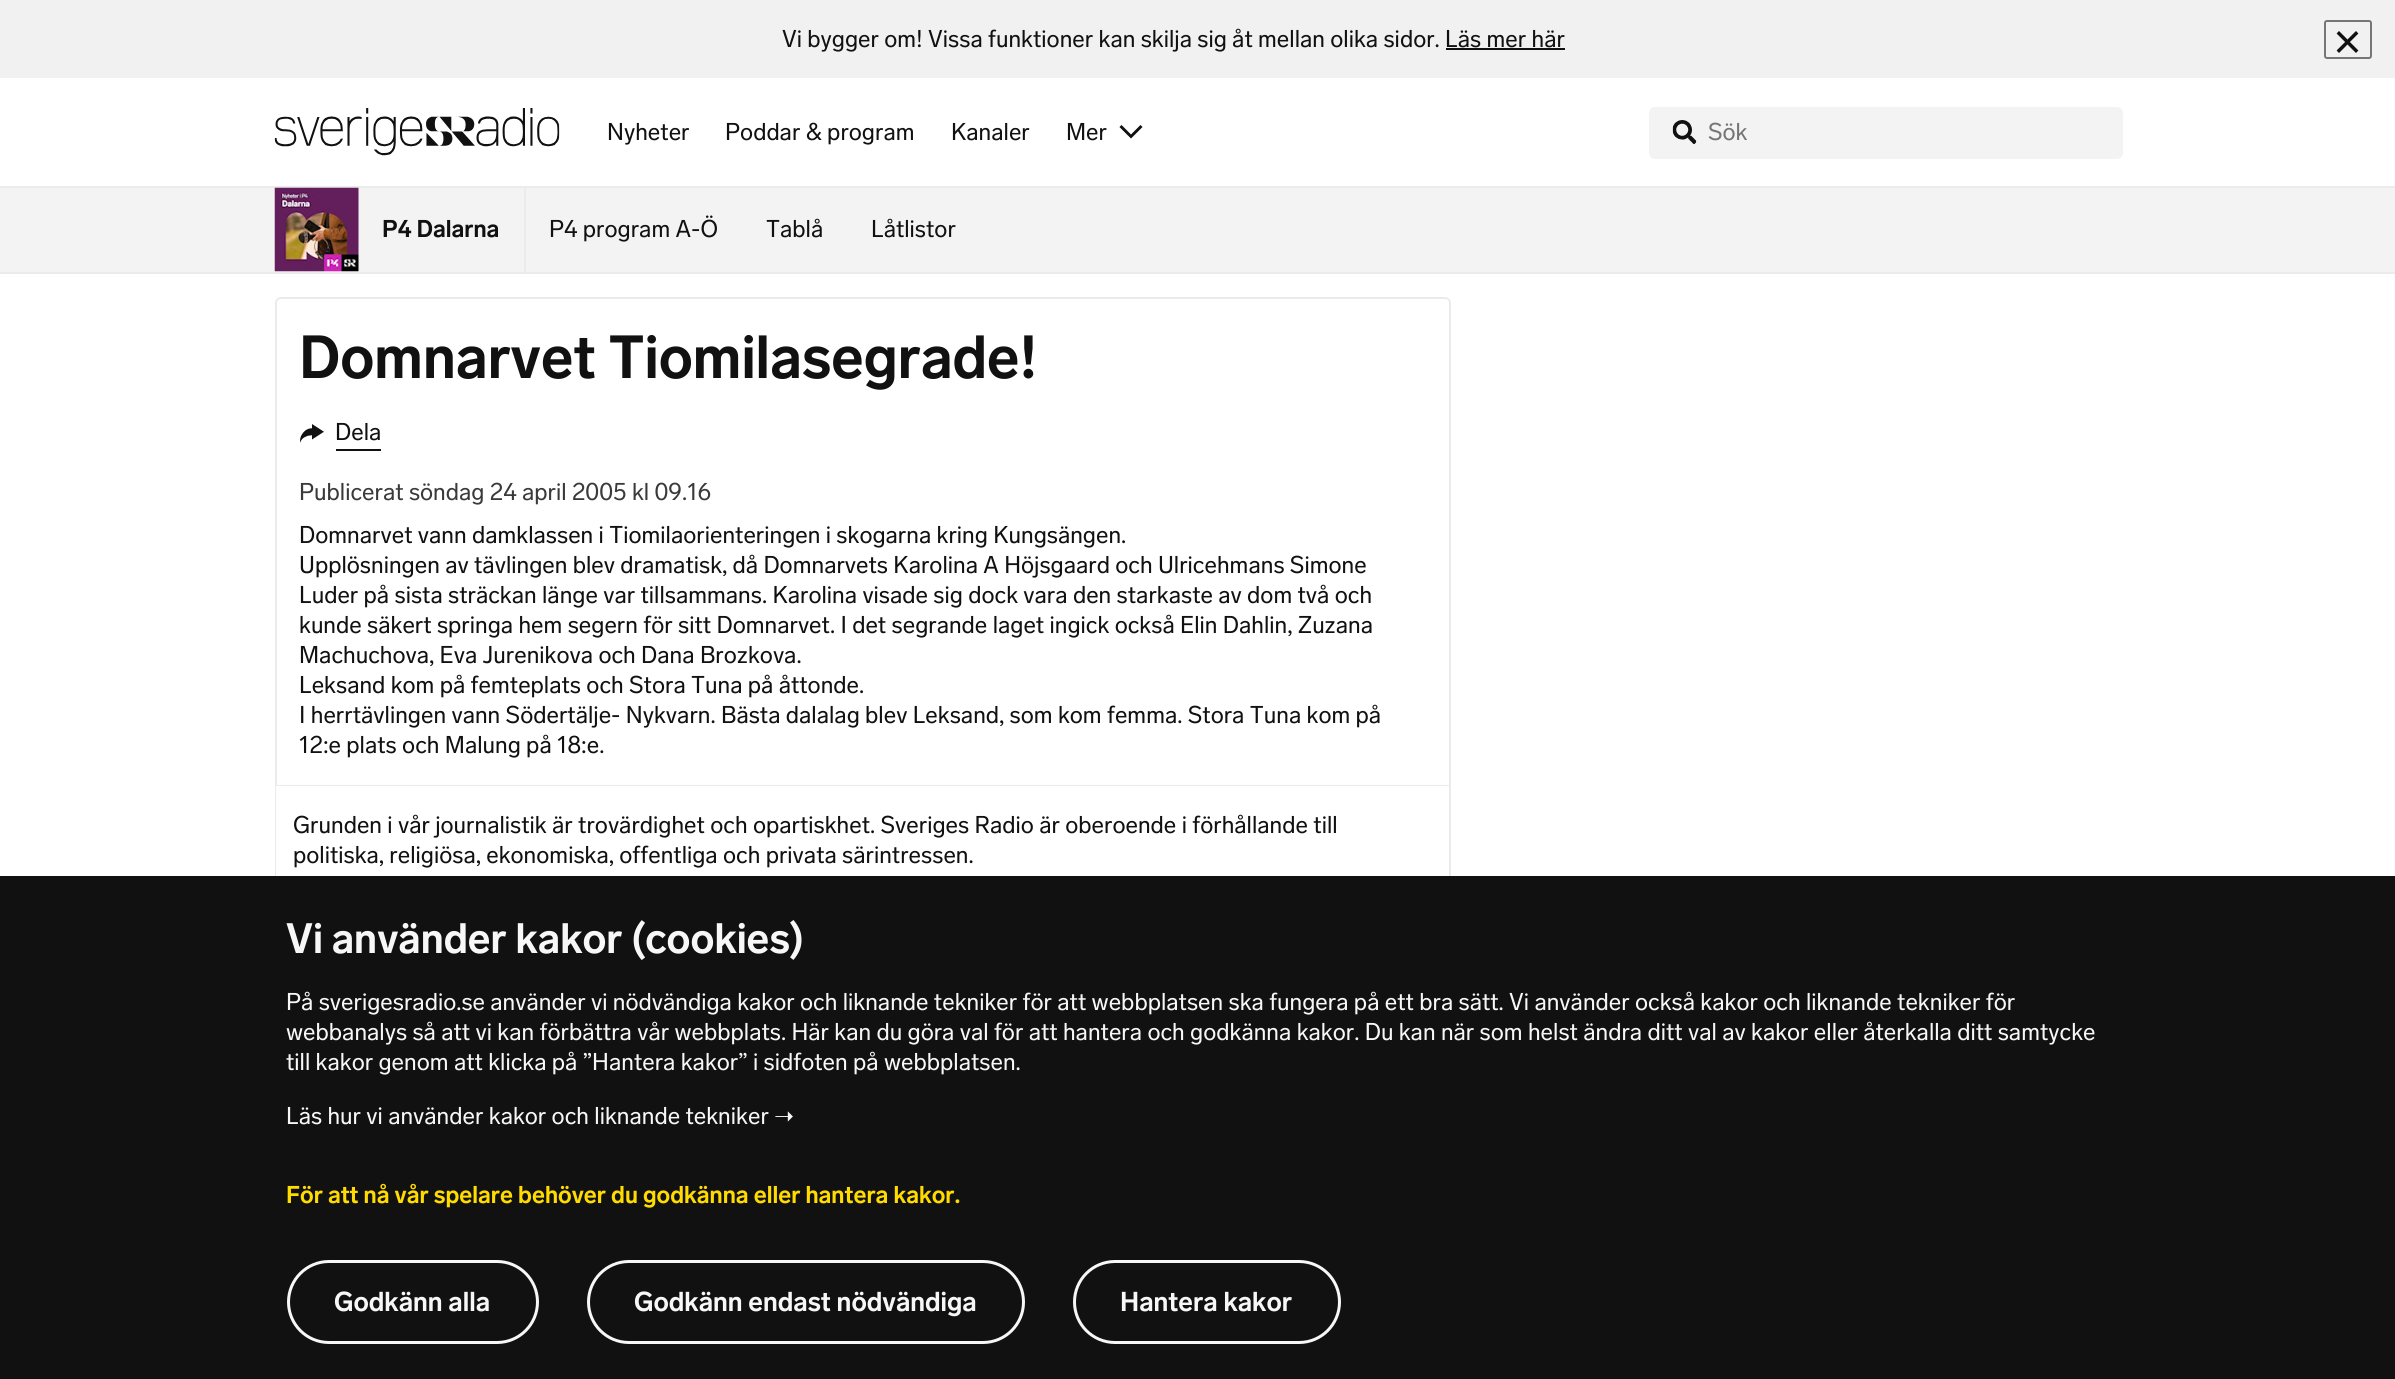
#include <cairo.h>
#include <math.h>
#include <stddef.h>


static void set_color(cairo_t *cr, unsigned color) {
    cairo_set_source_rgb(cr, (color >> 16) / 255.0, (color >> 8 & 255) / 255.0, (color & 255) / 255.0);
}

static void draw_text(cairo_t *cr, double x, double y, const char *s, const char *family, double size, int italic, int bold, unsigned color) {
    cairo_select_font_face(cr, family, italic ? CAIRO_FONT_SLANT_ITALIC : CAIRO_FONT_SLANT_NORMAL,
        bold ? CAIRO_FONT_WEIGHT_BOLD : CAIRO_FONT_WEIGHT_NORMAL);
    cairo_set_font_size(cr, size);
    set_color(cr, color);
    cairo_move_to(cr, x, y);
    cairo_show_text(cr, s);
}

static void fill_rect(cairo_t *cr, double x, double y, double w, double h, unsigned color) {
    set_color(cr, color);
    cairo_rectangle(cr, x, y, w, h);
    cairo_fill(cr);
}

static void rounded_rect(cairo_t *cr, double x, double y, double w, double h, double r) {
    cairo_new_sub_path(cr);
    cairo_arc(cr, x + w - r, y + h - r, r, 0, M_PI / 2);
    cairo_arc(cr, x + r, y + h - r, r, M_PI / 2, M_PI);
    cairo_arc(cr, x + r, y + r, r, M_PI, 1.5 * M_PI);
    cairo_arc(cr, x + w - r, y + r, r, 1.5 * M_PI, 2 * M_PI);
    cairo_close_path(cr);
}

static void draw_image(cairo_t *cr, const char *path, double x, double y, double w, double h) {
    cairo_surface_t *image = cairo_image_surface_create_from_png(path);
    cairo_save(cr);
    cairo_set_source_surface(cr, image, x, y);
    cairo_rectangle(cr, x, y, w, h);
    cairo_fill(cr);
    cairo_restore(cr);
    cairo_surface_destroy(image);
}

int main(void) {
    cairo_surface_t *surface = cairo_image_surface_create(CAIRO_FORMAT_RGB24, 2395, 1379);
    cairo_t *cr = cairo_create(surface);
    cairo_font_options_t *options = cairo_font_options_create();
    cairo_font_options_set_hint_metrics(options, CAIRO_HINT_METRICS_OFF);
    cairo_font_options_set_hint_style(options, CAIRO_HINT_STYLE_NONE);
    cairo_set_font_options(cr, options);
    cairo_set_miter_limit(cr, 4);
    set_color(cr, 0xFFFFFF);
    cairo_paint(cr);
    fill_rect(cr, 0, 0, 2395, 78, 0xF1F1F1);
    draw_text(cr, 782, 47, "Vi bygger om! Vissa funktioner kan skilja sig åt mellan olika sidor. Läs mer här", "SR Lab", 24, 0, 0, 0x111111);
    fill_rect(cr, 1446, 48, 119, 2, 0x111111);
    rounded_rect(cr, 2325, 21, 46, 37, 2);
    set_color(cr, 0x767676);
    cairo_stroke(cr);
    draw_image(cr, "assets/img1.png", 2336, 31, 23, 22);
    fill_rect(cr, 0, 186, 2395, 2, 0xEBEBEB);
    draw_image(cr, "assets/img2.png", 274, 108, 286, 48);
    draw_text(cr, 607, 140, "Nyheter", "SR Lab", 24, 0, 0, 0x111111);
    draw_text(cr, 725, 140, "Poddar & program", "SR Lab", 24, 0, 0, 0x111111);
    draw_text(cr, 951, 140, "Kanaler", "SR Lab", 24, 0, 0, 0x111111);
    draw_text(cr, 1066, 140, "Mer", "SR Lab", 24, 0, 0, 0x111111);
    draw_image(cr, "assets/img3.png", 1119, 125, 24, 14);
    set_color(cr, 0xF3F3F3);
    rounded_rect(cr, 1649, 107, 474, 52, 6);
    cairo_fill(cr);
    draw_image(cr, "assets/img4.png", 1672, 120, 25, 24);
    draw_text(cr, 1708, 140, "Sök", "SR Lab", 24, 0, 0, 0x757575);
    fill_rect(cr, 0, 188, 2395, 84, 0xF3F3F3);
    fill_rect(cr, 0, 272, 2395, 2, 0xEBEBEB);
    fill_rect(cr, 524, 188, 2, 84, 0xEBEBEB);
    draw_image(cr, "assets/img5.png", 274, 187, 85, 85);
    draw_text(cr, 382, 237, "P4 Dalarna", "SR Lab SemiBold", 24, 0, 0, 0x111111);
    draw_text(cr, 549, 237, "P4 program A-Ö", "SR Lab", 24, 0, 0, 0x111111);
    draw_text(cr, 766, 237, "Tablå", "SR Lab", 24, 0, 0, 0x111111);
    draw_text(cr, 871, 237, "Låtlistor", "SR Lab", 24, 0, 0, 0x111111);
    rounded_rect(cr, 276, 298, 1174, 675, 5);
    set_color(cr, 0xEBEBEB);
    cairo_stroke(cr);
    draw_text(cr, 299, 378, "Domnarvet Tiomilasegrade!", "SR Lab SemiBold", 60, 0, 0, 0x111111);
    draw_image(cr, "assets/img6.png", 300, 424, 24, 19);
    fill_rect(cr, 336, 449, 45, 2, 0x111111);
    draw_text(cr, 335, 440, "Dela", "SR Lab", 24, 0, 0, 0x111111);
    draw_text(cr, 299, 500, "Publicerat söndag 24 april 2005 kl 09.16", "SR Lab", 24, 0, 0, 0x3A3A3A);
    draw_text(cr, 299, 543, "Domnarvet vann damklassen i Tiomilaorienteringen i skogarna kring Kungsängen.", "SR Lab", 24, 0, 0, 0x111111);
    draw_text(cr, 299, 573, "Upplösningen av tävlingen blev dramatisk, då Domnarvets Karolina A Höjsgaard och Ulricehmans Simone", "SR Lab", 24, 0, 0, 0x111111);
    draw_text(cr, 299, 603, "Luder på sista sträckan länge var tillsammans. Karolina visade sig dock vara den starkaste av dom två och", "SR Lab", 24, 0, 0, 0x111111);
    draw_text(cr, 299, 633, "kunde säkert springa hem segern för sitt Domnarvet. I det segrande laget ingick också Elin Dahlin, Zuzana", "SR Lab", 24, 0, 0, 0x111111);
    draw_text(cr, 299, 663, "Machuchova, Eva Jurenikova och Dana Brozkova.", "SR Lab", 24, 0, 0, 0x111111);
    draw_text(cr, 299, 693, "Leksand kom på femteplats och Stora Tuna på åttonde.", "SR Lab", 24, 0, 0, 0x111111);
    draw_text(cr, 299, 723, "I herrtävlingen vann Södertälje- Nykvarn. Bästa dalalag blev Leksand, som kom femma. Stora Tuna kom på", "SR Lab", 24, 0, 0, 0x111111);
    draw_text(cr, 299, 753, "12:e plats och Malung på 18:e.", "SR Lab", 24, 0, 0, 0x111111);
    fill_rect(cr, 276, 785, 1173, 1, 0xEBEBEB);
    fill_rect(cr, 276, 786, 1, 90, 0xFFFFFF);
    draw_text(cr, 293, 833, "Grunden i vår journalistik är trovärdighet och opartiskhet. Sveriges Radio är oberoende i förhållande till", "SR Lab", 24, 0, 0, 0x111111);
    draw_text(cr, 293, 863, "politiska, religiösa, ekonomiska, offentliga och privata särintressen.", "SR Lab", 24, 0, 0, 0x111111);
    fill_rect(cr, 0, 876, 2395, 503, 0x111111);
    draw_text(cr, 286, 953, "Vi använder kakor (cookies)", "SR Lab SemiBold", 42, 0, 0, 0xF7F7F7);
    draw_text(cr, 286, 1010, "På sverigesradio.se använder vi nödvändiga kakor och liknande tekniker för att webbplatsen ska fungera på ett bra sätt. Vi använder också kakor och liknande tekniker för", "SR Lab", 24, 0, 0, 0xF7F7F7);
    draw_text(cr, 286, 1040, "webbanalys så att vi kan förbättra vår webbplats. Här kan du göra val för att hantera och godkänna kakor. Du kan när som helst ändra ditt val av kakor eller återkalla ditt samtycke", "SR Lab", 24, 0, 0, 0xF7F7F7);
    draw_text(cr, 286, 1070, "till kakor genom att klicka på ”Hantera kakor” i sidfoten på webbplatsen.", "SR Lab", 24, 0, 0, 0xF7F7F7);
    draw_text(cr, 286, 1124, "Läs hur vi använder kakor och liknande tekniker", "SR Lab", 24, 0, 0, 0xF7F7F7);
    draw_text(cr, 774, 1124, "➝", "DejaVu Sans", 24, 0, 0, 0xF7F7F7);
    draw_text(cr, 286, 1203, "För att nå vår spelare behöver du godkänna eller hantera kakor.", "SR Lab SemiBold", 24, 0, 0, 0xFFDB00);
    rounded_rect(cr, 288.5, 1261.5, 249, 81, 40.5);
    set_color(cr, 0xF7F7F7);
    cairo_set_line_width(cr, 3);
    cairo_stroke(cr);
    draw_text(cr, 334, 1311, "Godkänn alla", "SR Lab SemiBold", 27, 0, 0, 0xF7F7F7);
    rounded_rect(cr, 588.5, 1261.5, 435, 81, 40.5);
    cairo_stroke(cr);
    draw_text(cr, 634, 1311, "Godkänn endast nödvändiga", "SR Lab SemiBold", 27, 0, 0, 0xF7F7F7);
    rounded_rect(cr, 1074.5, 1261.5, 265, 81, 40.5);
    cairo_stroke(cr);
    draw_text(cr, 1120, 1311, "Hantera kakor", "SR Lab SemiBold", 27, 0, 0, 0xF7F7F7);
    cairo_surface_write_to_png(surface, "output.png");
    cairo_font_options_destroy(options);
    cairo_destroy(cr);
    cairo_surface_destroy(surface);
    return 0;
}
